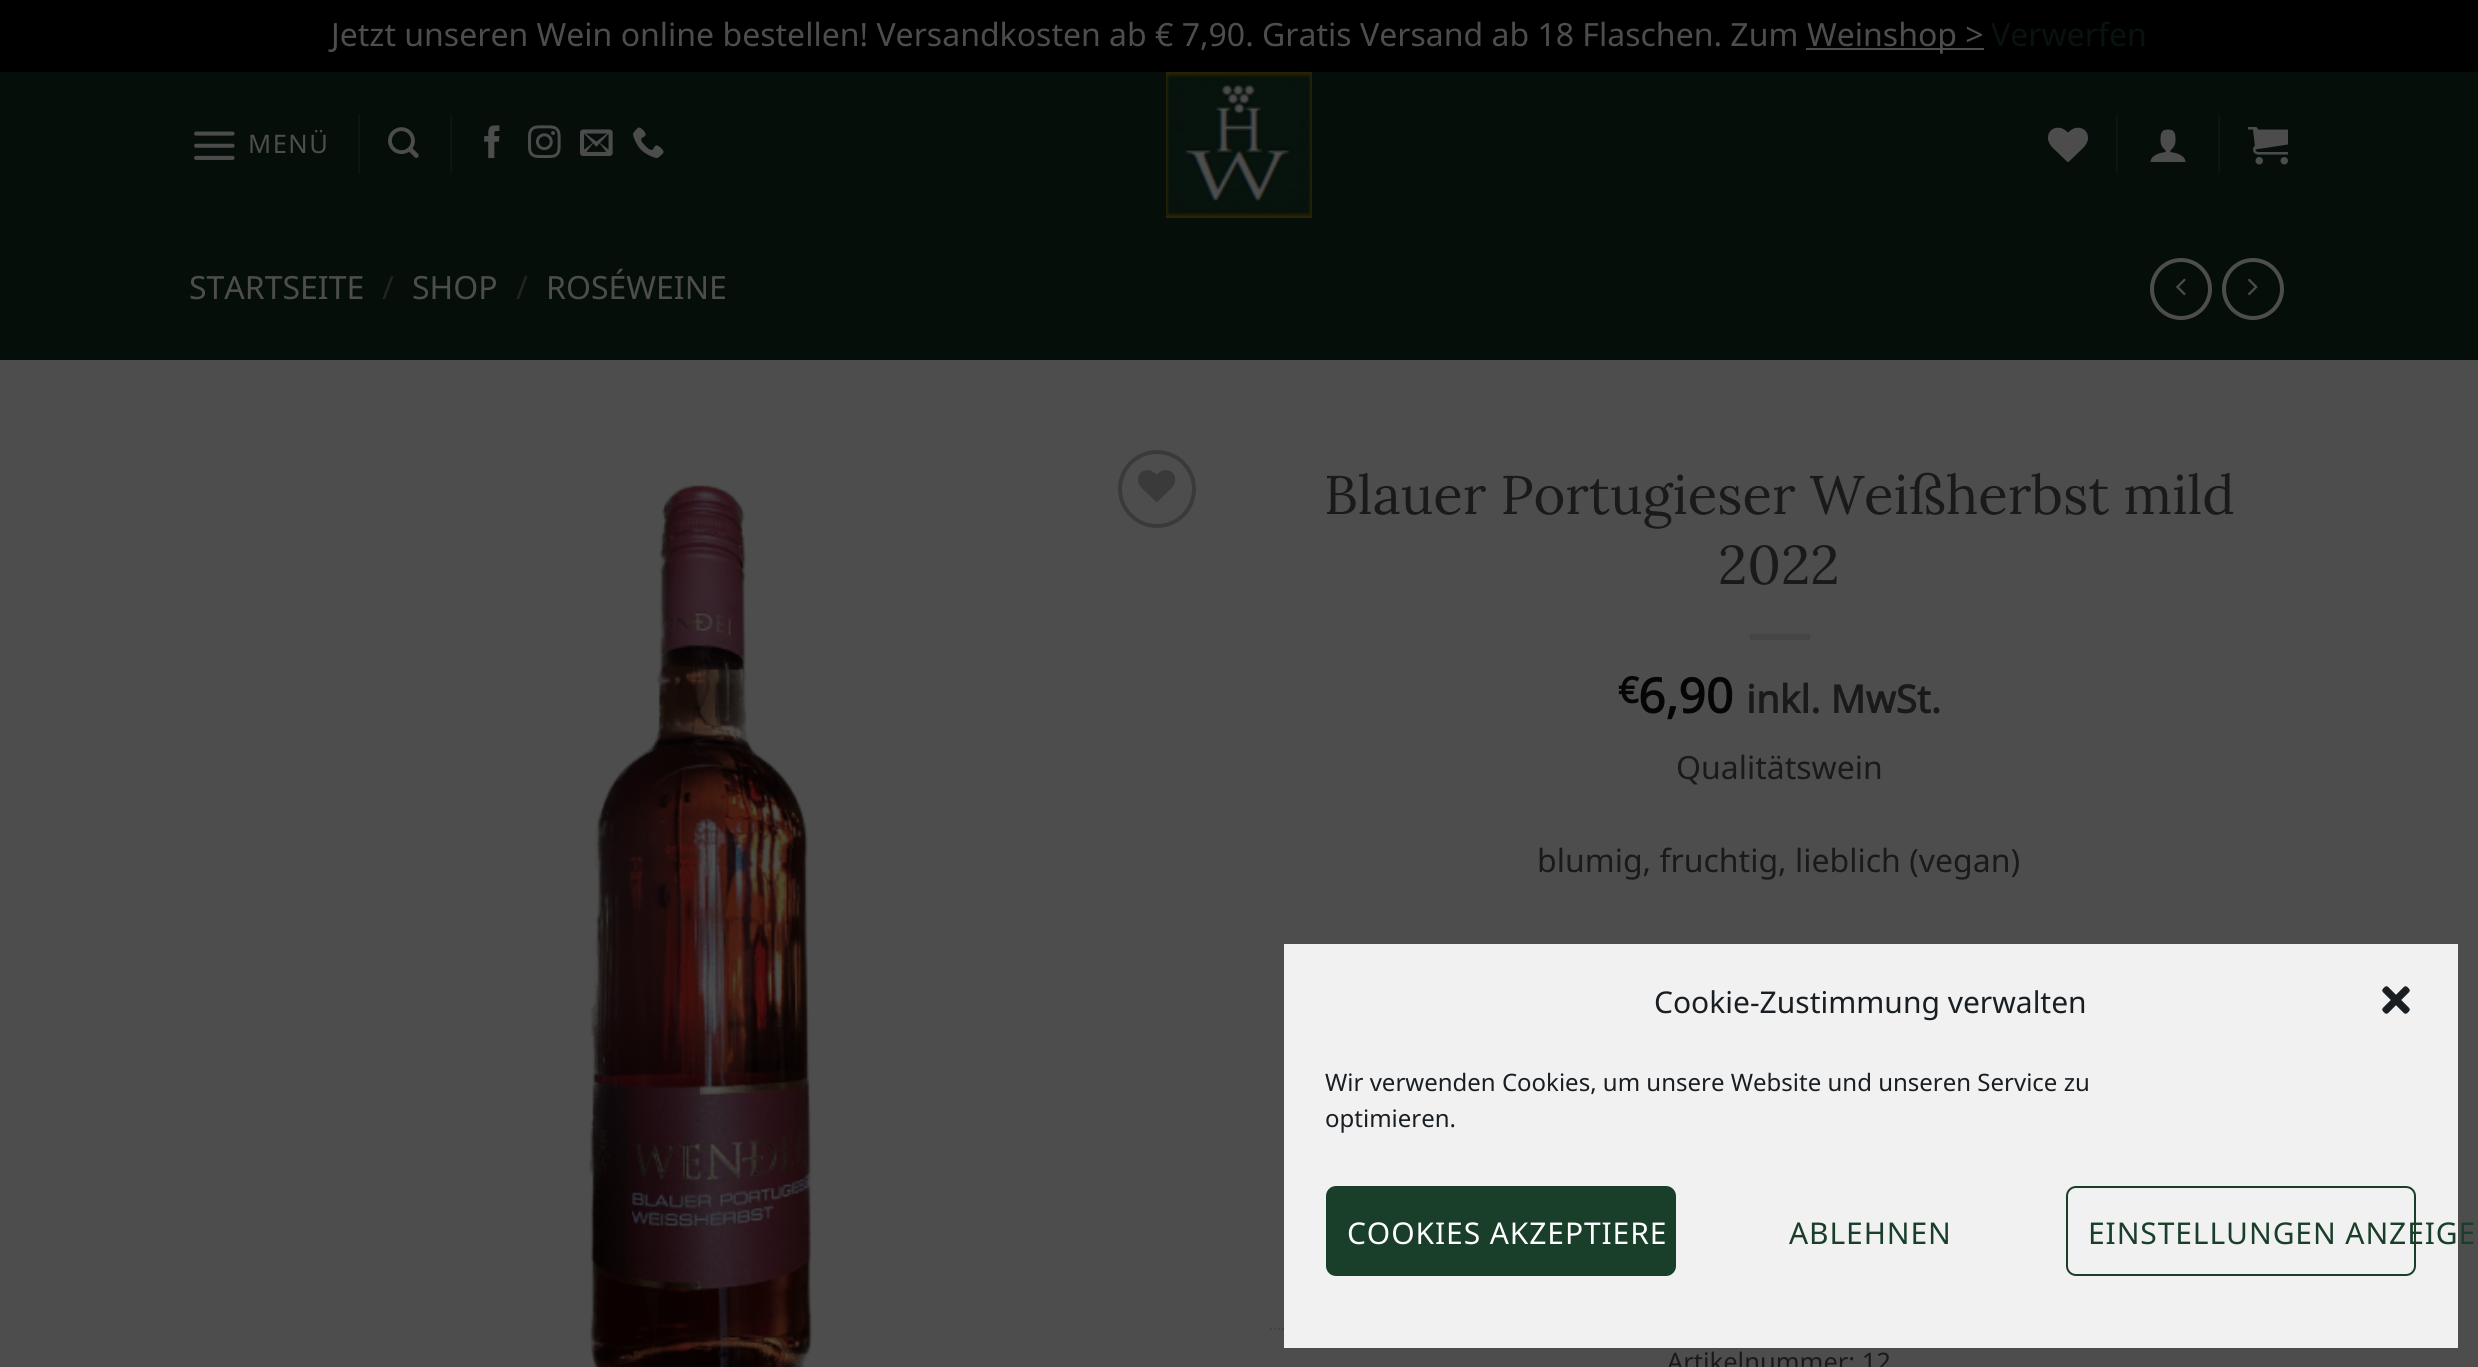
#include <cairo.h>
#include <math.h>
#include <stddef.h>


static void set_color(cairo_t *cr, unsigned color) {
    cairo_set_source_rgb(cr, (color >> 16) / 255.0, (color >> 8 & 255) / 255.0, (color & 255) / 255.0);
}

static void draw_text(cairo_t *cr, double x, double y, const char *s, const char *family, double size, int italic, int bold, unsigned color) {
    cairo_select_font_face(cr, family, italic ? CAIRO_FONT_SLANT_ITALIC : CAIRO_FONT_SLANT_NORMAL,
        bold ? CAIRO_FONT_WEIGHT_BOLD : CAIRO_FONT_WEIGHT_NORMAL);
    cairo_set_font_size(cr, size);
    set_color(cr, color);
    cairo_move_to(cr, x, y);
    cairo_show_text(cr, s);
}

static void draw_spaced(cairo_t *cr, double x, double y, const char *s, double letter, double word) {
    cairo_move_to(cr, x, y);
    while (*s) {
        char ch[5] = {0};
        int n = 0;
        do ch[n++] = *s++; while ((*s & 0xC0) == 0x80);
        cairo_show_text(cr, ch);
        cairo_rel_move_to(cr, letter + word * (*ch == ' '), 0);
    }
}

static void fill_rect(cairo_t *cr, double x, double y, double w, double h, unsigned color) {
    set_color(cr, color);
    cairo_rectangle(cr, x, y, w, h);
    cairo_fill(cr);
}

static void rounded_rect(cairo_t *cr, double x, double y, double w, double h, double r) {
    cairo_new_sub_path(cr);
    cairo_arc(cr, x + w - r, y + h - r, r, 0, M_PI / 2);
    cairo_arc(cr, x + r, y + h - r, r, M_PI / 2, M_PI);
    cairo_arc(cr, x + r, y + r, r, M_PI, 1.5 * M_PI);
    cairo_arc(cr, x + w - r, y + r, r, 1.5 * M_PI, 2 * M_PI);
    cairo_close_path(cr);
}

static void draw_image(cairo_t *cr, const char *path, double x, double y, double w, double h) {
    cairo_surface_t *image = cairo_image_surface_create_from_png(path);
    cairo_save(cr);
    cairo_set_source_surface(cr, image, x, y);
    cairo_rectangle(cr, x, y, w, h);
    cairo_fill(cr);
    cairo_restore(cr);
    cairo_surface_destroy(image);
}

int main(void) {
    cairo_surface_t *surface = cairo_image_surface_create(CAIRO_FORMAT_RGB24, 2478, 1367);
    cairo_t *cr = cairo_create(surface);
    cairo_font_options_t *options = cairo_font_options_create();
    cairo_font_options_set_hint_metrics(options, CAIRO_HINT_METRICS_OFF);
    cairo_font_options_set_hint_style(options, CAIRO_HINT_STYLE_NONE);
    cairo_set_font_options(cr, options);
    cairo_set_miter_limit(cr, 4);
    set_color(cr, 0x000000);
    cairo_paint(cr);
    draw_text(cr, 331, 46, "Jetzt unseren Wein online bestellen! Versandkosten ab € 7,90. Gratis Versand ab 18 Flaschen. Zum", "Noto Sans", 32, 0, 0, 0x4D4D4D);
    fill_rect(cr, 1806, 48, 178, 2, 0x4D4D4D);
    draw_text(cr, 1807, 46, "Weinshop >", "Noto Sans", 32, 0, 0, 0x4D4D4D);
    draw_text(cr, 1991, 46, "Verwerfen", "Noto Sans", 32, 0, 0, 0x08130D);
    fill_rect(cr, 0, 360, 2478, 1007, 0x4D4D4D);
    fill_rect(cr, 0, 72, 2478, 288, 0x060E0A);
    draw_image(cr, "assets/img1.png", 194, 131, 41, 29);
    cairo_set_font_size(cr, 25.5);
    set_color(cr, 0x4D4D4D);
    draw_spaced(cr, 248, 153, "MENÜ", 1.5, 0);
    fill_rect(cr, 358, 114, 2, 60, 0x0D1510);
    draw_image(cr, "assets/img2.png", 388, 127, 31, 31);
    fill_rect(cr, 450, 114, 2, 60, 0x0D1510);
    draw_image(cr, "assets/img3.png", 484, 125, 16, 34);
    draw_image(cr, "assets/img4.png", 528, 125, 33, 34);
    draw_image(cr, "assets/img5.png", 580, 129, 33, 27);
    draw_image(cr, "assets/img6.png", 633, 127, 31, 31);
    draw_image(cr, "assets/img7.png", 1166, 72, 146, 146);
    draw_image(cr, "assets/img8.png", 2048, 127, 40, 35);
    fill_rect(cr, 2116, 114, 2, 60, 0x0D1510);
    draw_image(cr, "assets/img9.png", 2150, 129, 36, 33);
    fill_rect(cr, 2218, 114, 2, 60, 0x0D1510);
    draw_image(cr, "assets/img10.png", 2248, 127, 40, 38);
    draw_text(cr, 189, 299, "STARTSEITE", "Noto Sans", 32, 0, 0, 0x4D4D4D);
    draw_text(cr, 382, 299, "/", "Noto Sans", 32, 0, 0, 0x1F2421);
    draw_text(cr, 412, 299, "SHOP", "Noto Sans", 32, 0, 0, 0x4D4D4D);
    draw_text(cr, 516, 299, "/", "Noto Sans", 32, 0, 0, 0x1F2421);
    draw_text(cr, 546, 299, "ROSÉWEINE", "Noto Sans", 32, 0, 0, 0x4D4D4D);
    cairo_new_path(cr);
    cairo_arc(cr, 2181, 289, 29, 0, 2 * M_PI);
    cairo_set_line_width(cr, 4);
    cairo_stroke(cr);
    draw_image(cr, "assets/img11.png", 2176, 278, 10, 18);
    cairo_arc(cr, 2253, 289, 29, 0, 2 * M_PI);
    cairo_stroke(cr);
    draw_image(cr, "assets/img12.png", 2247, 278, 11, 18);
    draw_image(cr, "assets/img13.png", 589, 485, 224, 882);
    cairo_arc(cr, 1157, 489, 37, 0, 2 * M_PI);
    set_color(cr, 0x3A3A3A);
    cairo_stroke(cr);
    draw_image(cr, "assets/img14.png", 1138, 470, 38, 32);
    draw_text(cr, 1324, 514, "Blauer Portugieser Weißherbst mild", "Lora", 54.4, 0, 0, 0x1A1A1A);
    draw_text(cr, 1718, 584, "2022", "Lora", 54.4, 0, 0, 0x1A1A1A);
    fill_rect(cr, 1750, 634, 60, 6, 0x454545);
    draw_text(cr, 1618, 703, "€", "Noto Sans", 36, 0, 1, 0x050505);
    draw_text(cr, 1638, 713, "6,90", "Noto Sans", 48, 0, 1, 0x050505);
    draw_text(cr, 1746, 713, "inkl. MwSt.", "Noto Sans", 38.5, 0, 1, 0x1A1A1A);
    draw_text(cr, 1676, 779, "Qualitätswein", "Noto Sans", 32, 0, 0, 0x1A1A1A);
    draw_text(cr, 1537, 872, "blumig, fruchtig, lieblich (vegan)", "Noto Sans", 32, 0, 0, 0x1A1A1A);
    cairo_new_path(cr);
    cairo_move_to(cr, 1270, 1329);
    cairo_line_to(cr, 2290, 1329);
    set_color(cr, 0x424242);
    cairo_set_line_width(cr, 2);
    cairo_set_dash(cr, (double[]){2, 2}, 2, 0);
    cairo_stroke(cr);
    draw_text(cr, 1667, 1371, "Artikelnummer: 12", "Noto Sans", 25.5, 0, 0, 0x1A1A1A);
    fill_rect(cr, 1284, 944, 1174, 404, 0xF1F1F1);
    draw_text(cr, 1654, 1013, "Cookie-Zustimmung verwalten", "Noto Sans", 30, 0, 0, 0x191E23);
    draw_image(cr, "assets/img15.png", 2382, 986, 28, 28);
    draw_text(cr, 1325, 1091, "Wir verwenden Cookies, um unsere Website und unseren Service zu", "Noto Sans", 24, 0, 0, 0x191E23);
    draw_text(cr, 1325, 1127, "optimieren.", "Noto Sans", 24, 0, 0, 0x191E23);
    set_color(cr, 0x193F2A);
    rounded_rect(cr, 1327, 1187, 348, 88, 9);
    cairo_fill_preserve(cr);
    cairo_set_dash(cr, NULL, 0, 0);
    cairo_stroke(cr);
    cairo_set_font_size(cr, 30);
    set_color(cr, 0xFFFFFF);
    draw_spaced(cr, 1347, 1244, "COOKIES AKZEPTIERE", 0.9, 0);
    set_color(cr, 0x193F2A);
    draw_spaced(cr, 1789, 1244, "ABLEHNEN", 0.9, 0);
    rounded_rect(cr, 2067, 1187, 348, 88, 9);
    cairo_stroke(cr);
    draw_spaced(cr, 2088, 1244, "EINSTELLUNGEN ANZEIGE", 0.9, 0);
    cairo_surface_write_to_png(surface, "output.png");
    cairo_font_options_destroy(options);
    cairo_destroy(cr);
    cairo_surface_destroy(surface);
    return 0;
}
